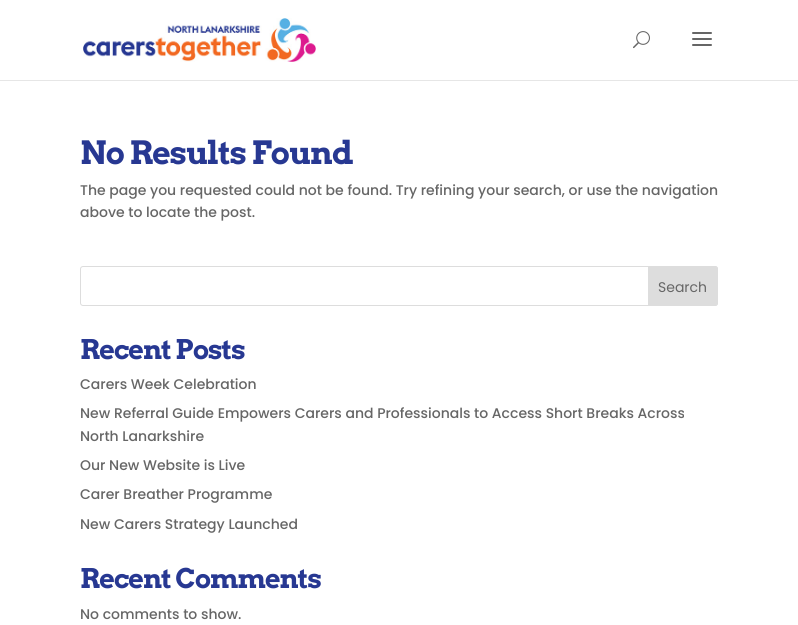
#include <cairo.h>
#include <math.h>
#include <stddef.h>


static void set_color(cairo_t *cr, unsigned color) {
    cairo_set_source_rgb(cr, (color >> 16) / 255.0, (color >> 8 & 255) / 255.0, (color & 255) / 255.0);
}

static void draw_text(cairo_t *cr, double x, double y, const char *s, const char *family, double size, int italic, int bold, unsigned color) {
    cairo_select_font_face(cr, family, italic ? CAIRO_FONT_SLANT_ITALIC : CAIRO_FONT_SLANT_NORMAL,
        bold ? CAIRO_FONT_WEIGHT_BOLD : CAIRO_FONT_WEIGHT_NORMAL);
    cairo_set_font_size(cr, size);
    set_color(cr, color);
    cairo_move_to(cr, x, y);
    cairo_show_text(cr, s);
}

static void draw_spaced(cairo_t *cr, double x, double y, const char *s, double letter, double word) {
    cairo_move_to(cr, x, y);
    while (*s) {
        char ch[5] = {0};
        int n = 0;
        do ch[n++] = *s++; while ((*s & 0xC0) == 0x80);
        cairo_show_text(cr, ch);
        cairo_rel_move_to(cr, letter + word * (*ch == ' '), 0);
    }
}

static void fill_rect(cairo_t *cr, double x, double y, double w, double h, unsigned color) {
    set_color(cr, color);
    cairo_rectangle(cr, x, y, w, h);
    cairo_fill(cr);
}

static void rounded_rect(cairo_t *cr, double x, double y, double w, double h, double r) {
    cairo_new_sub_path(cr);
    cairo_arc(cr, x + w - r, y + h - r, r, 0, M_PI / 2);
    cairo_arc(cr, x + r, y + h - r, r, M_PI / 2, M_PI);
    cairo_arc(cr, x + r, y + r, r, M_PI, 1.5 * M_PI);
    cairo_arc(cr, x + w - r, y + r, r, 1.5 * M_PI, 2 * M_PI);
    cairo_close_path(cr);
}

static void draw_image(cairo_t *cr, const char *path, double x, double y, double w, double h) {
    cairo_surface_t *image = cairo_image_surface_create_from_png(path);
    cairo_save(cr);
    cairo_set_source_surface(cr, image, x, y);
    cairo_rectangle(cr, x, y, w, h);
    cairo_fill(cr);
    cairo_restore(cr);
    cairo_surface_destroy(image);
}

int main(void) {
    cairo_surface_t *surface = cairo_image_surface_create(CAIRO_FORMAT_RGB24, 798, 625);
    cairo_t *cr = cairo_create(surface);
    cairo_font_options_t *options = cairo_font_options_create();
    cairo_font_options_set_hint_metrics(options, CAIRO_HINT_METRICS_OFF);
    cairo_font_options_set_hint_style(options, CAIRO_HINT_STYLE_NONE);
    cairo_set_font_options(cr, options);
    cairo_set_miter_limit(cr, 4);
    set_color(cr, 0xFFFFFF);
    cairo_paint(cr);
    fill_rect(cr, 0, 80, 798, 1, 0xE6E6E6);
    draw_image(cr, "assets/img1.png", 83, 18, 233, 44);
    draw_image(cr, "assets/img2.png", 633, 31, 17, 18);
    draw_image(cr, "assets/img3.png", 692, 32, 20, 14);
    cairo_select_font_face(cr, "Arvo", CAIRO_FONT_SLANT_NORMAL, CAIRO_FONT_WEIGHT_BOLD);
    cairo_set_font_size(cr, 32);
    set_color(cr, 0x273892);
    draw_spaced(cr, 80, 164, "No Results Found", -1, 0);
    draw_text(cr, 80, 195, "The page you requested could not be found. Try refining your search, or use the navigation", "Poppins Medium", 14, 0, 0, 0x666666);
    draw_text(cr, 80, 217, "above to locate the post.", "Poppins Medium", 14, 0, 0, 0x666666);
    rounded_rect(cr, 80.5, 266.5, 637, 39, 2.5);
    set_color(cr, 0xDDDDDD);
    cairo_set_line_width(cr, 1);
    cairo_stroke(cr);
    cairo_new_path(cr);
    cairo_move_to(cr, 648.5, 266.5);
    cairo_line_to(cr, 715, 266.5);
    cairo_curve_to(cr, 716.5, 266.5, 717.5, 267.5, 717.5, 269);
    cairo_line_to(cr, 717.5, 303);
    cairo_curve_to(cr, 717.5, 304.5, 716.5, 305.5, 715, 305.5);
    cairo_line_to(cr, 648.5, 305.5);
    cairo_close_path(cr);
    cairo_fill_preserve(cr);
    cairo_stroke(cr);
    draw_text(cr, 658, 292, "Search", "Poppins", 14, 0, 0, 0x666666);
    cairo_select_font_face(cr, "Arvo", CAIRO_FONT_SLANT_NORMAL, CAIRO_FONT_WEIGHT_BOLD);
    cairo_set_font_size(cr, 27);
    set_color(cr, 0x273892);
    draw_spaced(cr, 80, 359, "Recent Posts", -1, 0);
    draw_text(cr, 80, 389, "Carers Week Celebration", "Poppins Medium", 14, 0, 0, 0x666666);
    draw_text(cr, 80, 418, "New Referral Guide Empowers Carers and Professionals to Access Short Breaks Across", "Poppins Medium", 14, 0, 0, 0x666666);
    draw_text(cr, 80, 441, "North Lanarkshire", "Poppins Medium", 14, 0, 0, 0x666666);
    draw_text(cr, 80, 470, "Our New Website is Live", "Poppins Medium", 14, 0, 0, 0x666666);
    draw_text(cr, 80, 499, "Carer Breather Programme", "Poppins Medium", 14, 0, 0, 0x666666);
    draw_text(cr, 80, 529, "New Carers Strategy Launched", "Poppins Medium", 14, 0, 0, 0x666666);
    cairo_select_font_face(cr, "Arvo", CAIRO_FONT_SLANT_NORMAL, CAIRO_FONT_WEIGHT_BOLD);
    cairo_set_font_size(cr, 27);
    set_color(cr, 0x273892);
    draw_spaced(cr, 80, 588, "Recent Comments", -1, 0);
    draw_text(cr, 80, 619, "No comments to show.", "Poppins Medium", 14, 0, 0, 0x666666);
    cairo_surface_write_to_png(surface, "output.png");
    cairo_font_options_destroy(options);
    cairo_destroy(cr);
    cairo_surface_destroy(surface);
    return 0;
}
